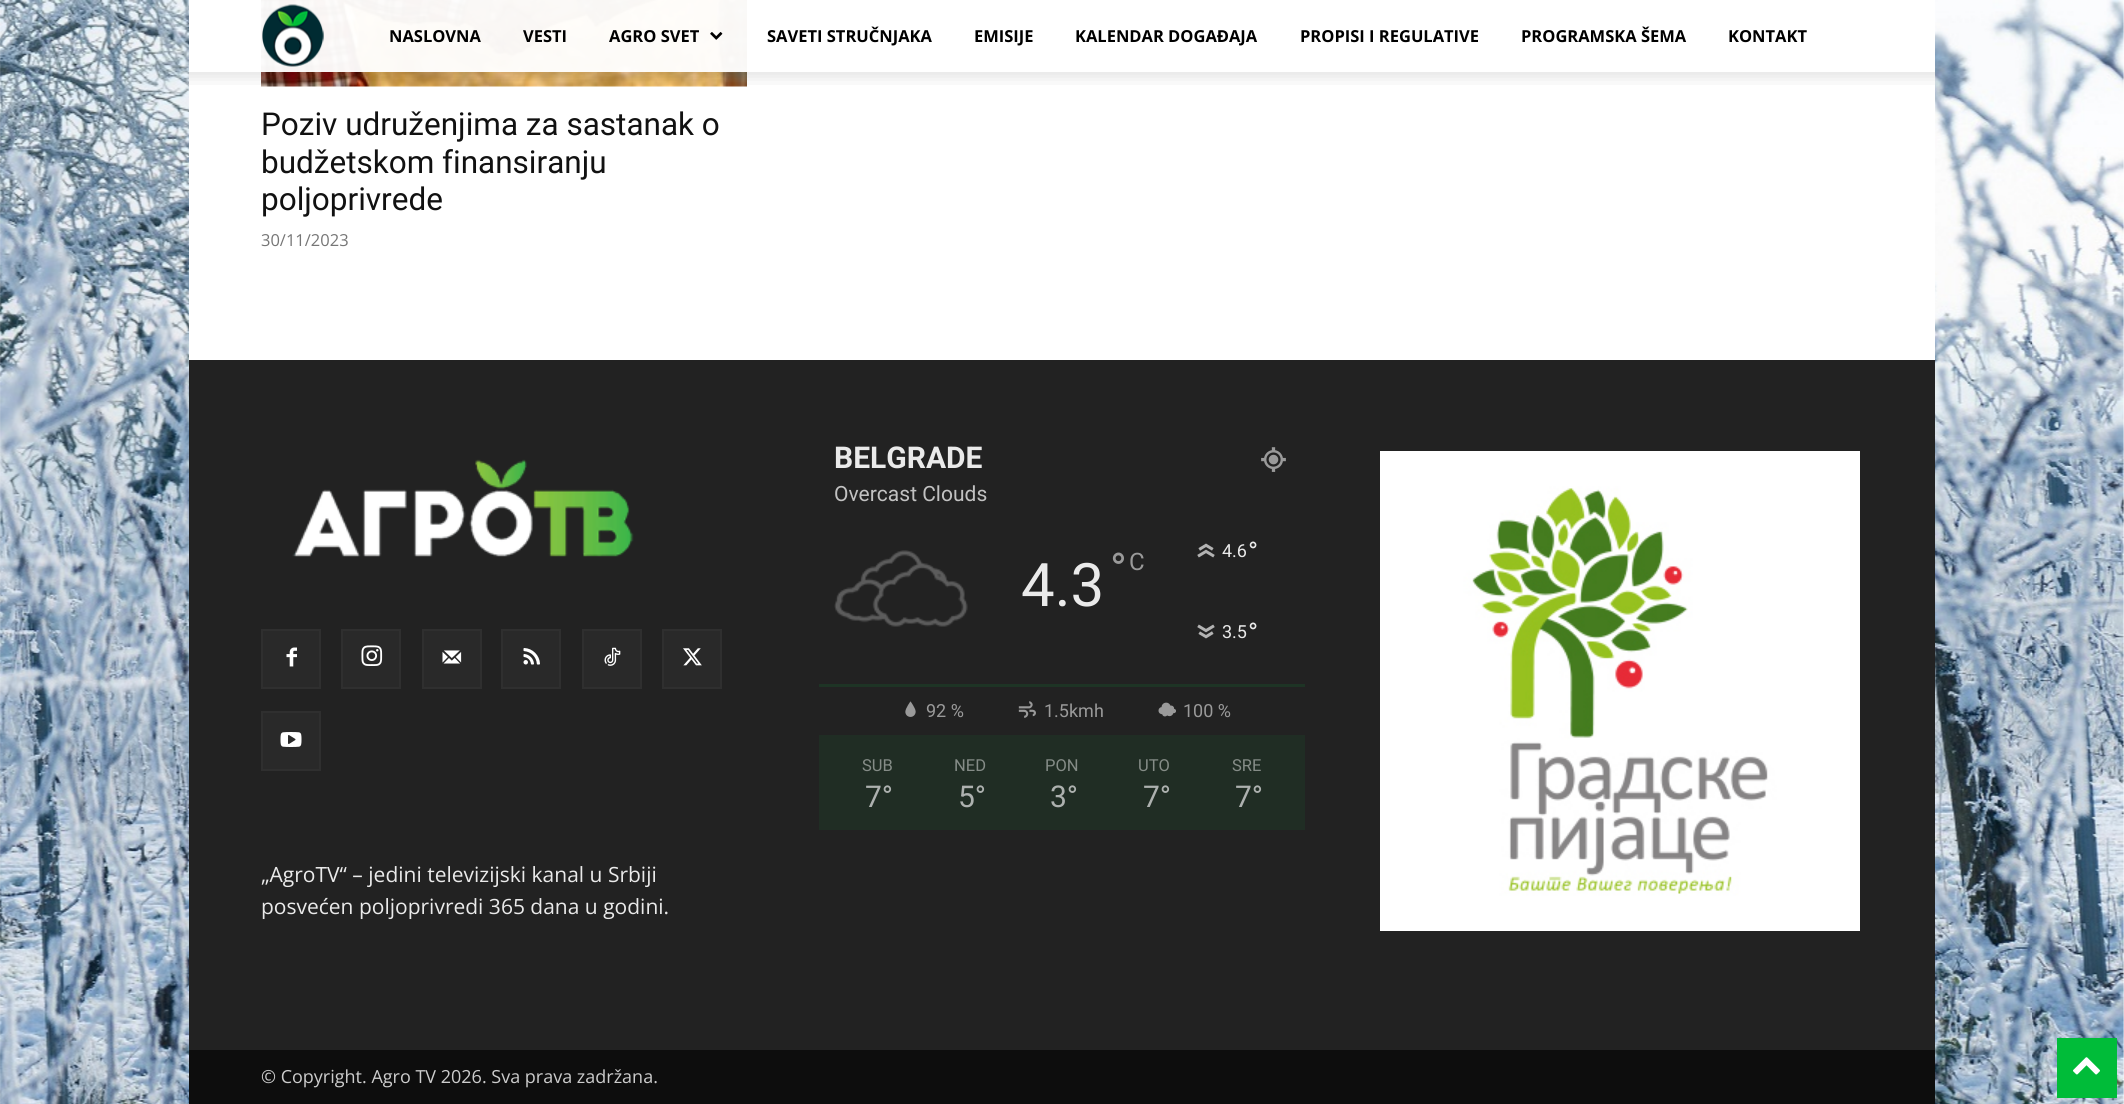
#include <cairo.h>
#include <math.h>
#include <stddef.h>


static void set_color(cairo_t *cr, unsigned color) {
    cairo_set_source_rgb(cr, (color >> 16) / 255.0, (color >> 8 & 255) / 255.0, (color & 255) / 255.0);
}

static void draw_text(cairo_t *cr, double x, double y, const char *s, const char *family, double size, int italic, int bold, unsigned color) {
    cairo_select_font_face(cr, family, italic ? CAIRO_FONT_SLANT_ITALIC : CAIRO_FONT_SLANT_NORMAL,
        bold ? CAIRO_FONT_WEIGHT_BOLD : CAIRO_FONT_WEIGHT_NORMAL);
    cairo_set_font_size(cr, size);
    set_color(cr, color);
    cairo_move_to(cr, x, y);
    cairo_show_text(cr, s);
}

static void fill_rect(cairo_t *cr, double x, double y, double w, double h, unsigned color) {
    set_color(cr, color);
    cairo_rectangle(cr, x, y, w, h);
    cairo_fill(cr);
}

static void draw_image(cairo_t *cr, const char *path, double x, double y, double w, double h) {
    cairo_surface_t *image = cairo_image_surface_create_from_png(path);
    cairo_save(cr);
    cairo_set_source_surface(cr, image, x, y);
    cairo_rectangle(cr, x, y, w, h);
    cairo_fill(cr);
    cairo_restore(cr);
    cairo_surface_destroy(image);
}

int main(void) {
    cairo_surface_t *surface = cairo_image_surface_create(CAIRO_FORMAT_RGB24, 2124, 1104);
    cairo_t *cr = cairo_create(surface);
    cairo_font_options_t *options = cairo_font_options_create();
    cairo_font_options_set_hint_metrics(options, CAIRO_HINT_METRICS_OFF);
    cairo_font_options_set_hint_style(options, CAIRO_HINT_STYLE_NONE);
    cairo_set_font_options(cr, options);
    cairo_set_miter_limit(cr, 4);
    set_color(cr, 0xFFFFFF);
    cairo_paint(cr);
    draw_image(cr, "assets/img1.png", 0, 0, 2124, 1104);
    fill_rect(cr, 189, 0, 1746, 360, 0xFFFFFF);
    draw_image(cr, "assets/img5.png", 261, 0, 486, 87);
    cairo_set_source_rgba(cr, 1, 1, 1, 0.95);
    cairo_rectangle(cr, 261, 0, 486, 72);
    cairo_fill(cr);
    draw_image(cr, "assets/img2.png", 262, 4, 62, 63);
    draw_text(cr, 389, 42, "NASLOVNA", "Open Sans", 16.5, 0, 1, 0x000000);
    draw_text(cr, 523, 42, "VESTI", "Open Sans", 16.5, 0, 1, 0x000000);
    draw_text(cr, 609, 42, "AGRO SVET", "Open Sans", 16.5, 0, 1, 0x000000);
    draw_image(cr, "assets/img3.png", 710, 32, 13, 8);
    draw_text(cr, 767, 42, "SAVETI STRUČNJAKA", "Open Sans", 16.5, 0, 1, 0x000000);
    draw_text(cr, 974, 42, "EMISIJE", "Open Sans", 16.5, 0, 1, 0x000000);
    draw_text(cr, 1075, 42, "KALENDAR DOGAĐAJA", "Open Sans", 16.5, 0, 1, 0x000000);
    draw_text(cr, 1300, 42, "PROPISI I REGULATIVE", "Open Sans", 16.5, 0, 1, 0x000000);
    draw_text(cr, 1521, 42, "PROGRAMSKA ŠEMA", "Open Sans", 16.5, 0, 1, 0x000000);
    draw_text(cr, 1728, 42, "KONTAKT", "Open Sans", 16.5, 0, 1, 0x000000);
    draw_image(cr, "assets/img4.png", 189, 72, 1746, 13);
    draw_text(cr, 261, 135, "Poziv udruženjima za sastanak o", "Roboto", 31.5, 0, 0, 0x111111);
    draw_text(cr, 261, 173, "budžetskom finansiranju", "Roboto", 31.5, 0, 0, 0x111111);
    draw_text(cr, 261, 210, "poljoprivrede", "Roboto", 31.5, 0, 0, 0x111111);
    draw_text(cr, 261, 246, "30/11/2023", "Open Sans", 16.5, 0, 0, 0x767676);
    fill_rect(cr, 189, 360, 1746, 690, 0x222222);
    draw_image(cr, "assets/img6.png", 292, 459, 342, 98);
    fill_rect(cr, 263, 631, 56, 56, 0x292929);
    draw_image(cr, "assets/img7.png", 286, 647, 11, 20);
    cairo_rectangle(cr, 262, 630, 58, 58);
    set_color(cr, 0x2F2F2F);
    cairo_stroke(cr);
    fill_rect(cr, 343, 631, 56, 56, 0x292929);
    draw_image(cr, "assets/img8.png", 361, 645, 22, 21);
    cairo_rectangle(cr, 342, 630, 58, 58);
    set_color(cr, 0x2F2F2F);
    cairo_stroke(cr);
    fill_rect(cr, 424, 631, 56, 56, 0x292929);
    draw_image(cr, "assets/img9.png", 442, 650, 20, 14);
    cairo_rectangle(cr, 423, 630, 58, 58);
    set_color(cr, 0x2F2F2F);
    cairo_stroke(cr);
    fill_rect(cr, 503, 631, 56, 56, 0x292929);
    draw_image(cr, "assets/img10.png", 523, 648, 17, 17);
    cairo_rectangle(cr, 502, 630, 58, 58);
    set_color(cr, 0x2F2F2F);
    cairo_stroke(cr);
    fill_rect(cr, 584, 631, 56, 56, 0x292929);
    draw_image(cr, "assets/img11.png", 604, 647, 17, 19);
    cairo_rectangle(cr, 583, 630, 58, 58);
    set_color(cr, 0x2F2F2F);
    cairo_stroke(cr);
    fill_rect(cr, 664, 631, 56, 56, 0x292929);
    draw_image(cr, "assets/img12.png", 683, 648, 19, 18);
    cairo_rectangle(cr, 663, 630, 58, 58);
    set_color(cr, 0x2F2F2F);
    cairo_stroke(cr);
    fill_rect(cr, 263, 713, 56, 56, 0x292929);
    draw_image(cr, "assets/img13.png", 280, 732, 22, 15);
    cairo_rectangle(cr, 262, 712, 58, 58);
    set_color(cr, 0x2F2F2F);
    cairo_stroke(cr);
    draw_text(cr, 261, 882, "„AgroTV“ – jedini televizijski kanal u Srbiji", "Open Sans", 21, 0, 0, 0xEAEAEA);
    draw_text(cr, 261, 914, "posvećen poljoprivredi 365 dana u godini.", "Open Sans", 21, 0, 0, 0xEAEAEA);
    draw_text(cr, 834, 468, "BELGRADE", "Roboto", 30, 0, 1, 0xEAEAEA);
    draw_image(cr, "assets/img14.png", 1261, 447, 25, 25);
    draw_text(cr, 834, 501, "Overcast Clouds", "Roboto", 21, 0, 0, 0xC2C2C2);
    draw_image(cr, "assets/img15.png", 834, 550, 134, 77);
    draw_text(cr, 1021, 606, "4.3", "Roboto", 60, 0, 0, 0xEAEAEA);
    draw_text(cr, 1110, 585, "°", "Roboto", 45, 0, 0, 0x9A9A9A);
    draw_text(cr, 1129, 570, "C", "Roboto", 24, 0, 0, 0x9A9A9A);
    draw_image(cr, "assets/img16.png", 1197, 543, 18, 15);
    draw_text(cr, 1222, 557, "4.6", "Roboto", 18, 0, 0, 0xEAEAEA);
    draw_text(cr, 1248, 561, "°", "Roboto", 27, 0, 0, 0xEAEAEA);
    draw_image(cr, "assets/img17.png", 1197, 624, 18, 15);
    draw_text(cr, 1222, 638, "3.5", "Roboto", 18, 0, 0, 0xEAEAEA);
    draw_text(cr, 1248, 642, "°", "Roboto", 27, 0, 0, 0xEAEAEA);
    fill_rect(cr, 819, 684, 486, 3, 0x1E3425);
    draw_image(cr, "assets/img18.png", 905, 701, 11, 16);
    draw_text(cr, 926, 717, "92 %", "Roboto", 18, 0, 0, 0x9A9A9A);
    draw_image(cr, "assets/img19.png", 1018, 701, 18, 17);
    draw_text(cr, 1044, 717, "1.5kmh", "Roboto", 18, 0, 0, 0x9A9A9A);
    draw_image(cr, "assets/img20.png", 1158, 702, 18, 15);
    draw_text(cr, 1183, 717, "100 %", "Roboto", 18, 0, 0, 0x9A9A9A);
    fill_rect(cr, 819, 735, 486, 95, 0x202D24);
    draw_text(cr, 862, 771, "SUB", "Roboto", 16.5, 0, 0, 0x858C87);
    draw_text(cr, 865, 807, "7°", "Roboto", 30, 0, 0, 0xADB1AF);
    draw_text(cr, 954, 771, "NED", "Roboto", 16.5, 0, 0, 0x858C87);
    draw_text(cr, 958, 807, "5°", "Roboto", 30, 0, 0, 0xADB1AF);
    draw_text(cr, 1045, 771, "PON", "Roboto", 16.5, 0, 0, 0x858C87);
    draw_text(cr, 1050, 807, "3°", "Roboto", 30, 0, 0, 0xADB1AF);
    draw_text(cr, 1138, 771, "UTO", "Roboto", 16.5, 0, 0, 0x858C87);
    draw_text(cr, 1143, 807, "7°", "Roboto", 30, 0, 0, 0xADB1AF);
    draw_text(cr, 1232, 771, "SRE", "Roboto", 16.5, 0, 0, 0x858C87);
    draw_text(cr, 1235, 807, "7°", "Roboto", 30, 0, 0, 0xADB1AF);
    draw_image(cr, "assets/img21.png", 1380, 451, 480, 480);
    fill_rect(cr, 189, 1050, 1746, 54, 0x0D0D0D);
    draw_text(cr, 261, 1083, "© Copyright. Agro TV 2026. Sva prava zadržana.", "Open Sans", 18, 0, 0, 0xCCCCCC);
    fill_rect(cr, 2057, 1038, 60, 60, 0x00BC39);
    draw_image(cr, "assets/img22.png", 2073, 1057, 27, 18);
    cairo_surface_write_to_png(surface, "output.png");
    cairo_font_options_destroy(options);
    cairo_destroy(cr);
    cairo_surface_destroy(surface);
    return 0;
}
